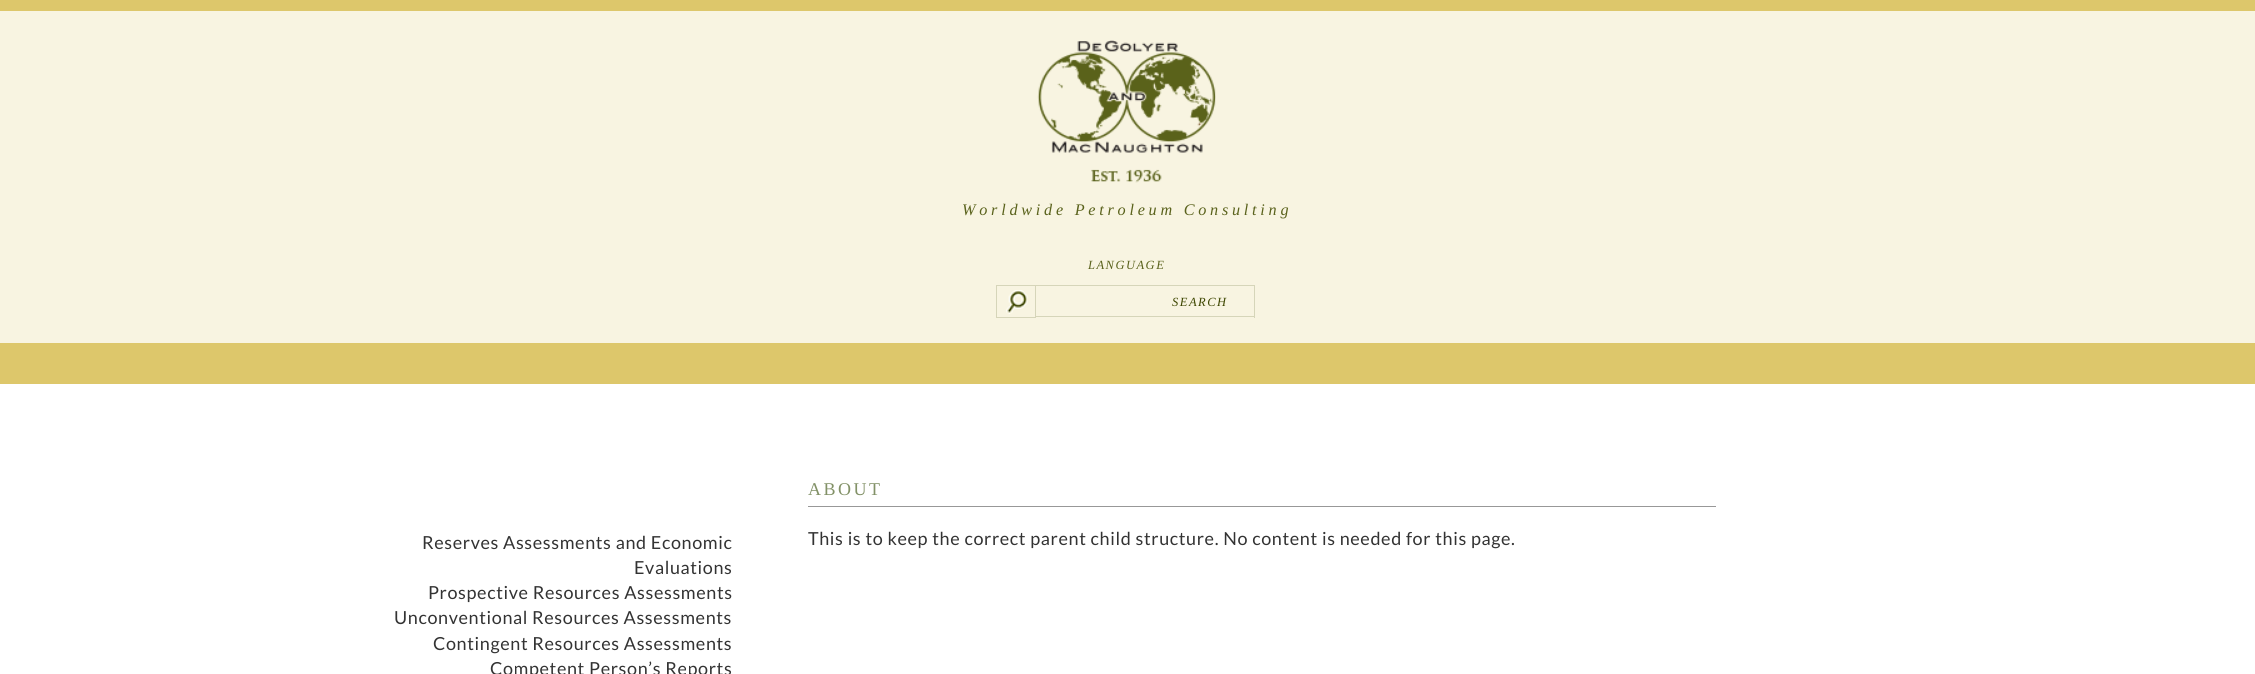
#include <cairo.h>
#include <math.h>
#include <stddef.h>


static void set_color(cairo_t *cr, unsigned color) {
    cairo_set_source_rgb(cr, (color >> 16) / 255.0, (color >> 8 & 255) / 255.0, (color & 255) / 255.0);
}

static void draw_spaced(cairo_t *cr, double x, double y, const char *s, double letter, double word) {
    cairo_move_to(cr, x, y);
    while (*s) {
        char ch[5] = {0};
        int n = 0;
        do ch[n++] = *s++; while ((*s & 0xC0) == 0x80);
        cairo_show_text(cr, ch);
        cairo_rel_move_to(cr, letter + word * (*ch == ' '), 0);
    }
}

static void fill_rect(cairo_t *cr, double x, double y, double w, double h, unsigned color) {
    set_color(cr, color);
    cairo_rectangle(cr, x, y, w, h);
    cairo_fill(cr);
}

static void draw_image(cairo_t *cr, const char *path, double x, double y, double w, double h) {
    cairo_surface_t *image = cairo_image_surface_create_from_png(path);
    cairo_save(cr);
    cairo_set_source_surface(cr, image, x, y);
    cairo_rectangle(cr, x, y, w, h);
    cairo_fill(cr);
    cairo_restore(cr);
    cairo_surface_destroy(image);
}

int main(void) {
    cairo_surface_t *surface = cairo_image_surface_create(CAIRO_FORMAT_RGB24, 2255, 674);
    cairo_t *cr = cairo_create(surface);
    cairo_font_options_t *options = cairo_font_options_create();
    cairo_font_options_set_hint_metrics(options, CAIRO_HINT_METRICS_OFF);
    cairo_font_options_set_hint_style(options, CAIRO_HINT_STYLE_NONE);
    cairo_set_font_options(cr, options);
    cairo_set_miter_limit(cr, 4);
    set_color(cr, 0xFFFFFF);
    cairo_paint(cr);
    fill_rect(cr, 0, 0, 2255, 11, 0xDDC76B);
    fill_rect(cr, 0, 11, 2255, 332, 0xF8F4E1);
    draw_image(cr, "assets/img1.png", 1037, 40, 179, 143);
    cairo_select_font_face(cr, "Liberation Serif", CAIRO_FONT_SLANT_ITALIC, CAIRO_FONT_WEIGHT_NORMAL);
    cairo_set_font_size(cr, 16.2);
    set_color(cr, 0x5A621C);
    draw_spaced(cr, 962, 215, "Worldwide Petroleum Consulting", 3.75, 0);
    cairo_set_font_size(cr, 12.5);
    draw_spaced(cr, 1088, 269, "LANGUAGE", 1.5, 0);
    cairo_rectangle(cr, 996.5, 285.5, 39, 32);
    set_color(cr, 0xD6D5B9);
    cairo_set_line_width(cr, 1);
    cairo_stroke(cr);
    draw_image(cr, "assets/img2.png", 1006, 290, 22, 24);
    fill_rect(cr, 1036, 285, 219, 1, 0xD6D5B9);
    fill_rect(cr, 1254, 285, 1, 33, 0xD6D5B9);
    fill_rect(cr, 1036, 316, 219, 1, 0xD6D5B9);
    set_color(cr, 0x3D4600);
    draw_spaced(cr, 1172, 306, "SEARCH", 1.5, 0);
    fill_rect(cr, 0, 343, 2255, 41, 0xDDC76B);
    cairo_select_font_face(cr, "Liberation Serif", CAIRO_FONT_SLANT_NORMAL, CAIRO_FONT_WEIGHT_NORMAL);
    cairo_set_font_size(cr, 18);
    set_color(cr, 0x829167);
    draw_spaced(cr, 808, 495, "ABOUT", 2.5, 0);
    fill_rect(cr, 808, 506, 908, 1, 0x989898);
    cairo_select_font_face(cr, "Lato", CAIRO_FONT_SLANT_NORMAL, CAIRO_FONT_WEIGHT_NORMAL);
    set_color(cr, 0x333333);
    draw_spaced(cr, 808, 545, "This is to keep the correct parent child structure. No content is needed for this page.", 0.62, 0);
    draw_spaced(cr, 422, 549, "Reserves Assessments and Economic", 0.62, 0);
    draw_spaced(cr, 634, 574, "Evaluations", 0.62, 0);
    draw_spaced(cr, 428, 599, "Prospective Resources Assessments", 0.62, 0);
    draw_spaced(cr, 394, 624, "Unconventional Resources Assessments", 0.62, 0);
    draw_spaced(cr, 433, 650, "Contingent Resources Assessments", 0.62, 0);
    draw_spaced(cr, 490, 675, "Competent Person’s Reports", 0.62, 0);
    cairo_surface_write_to_png(surface, "output.png");
    cairo_font_options_destroy(options);
    cairo_destroy(cr);
    cairo_surface_destroy(surface);
    return 0;
}
